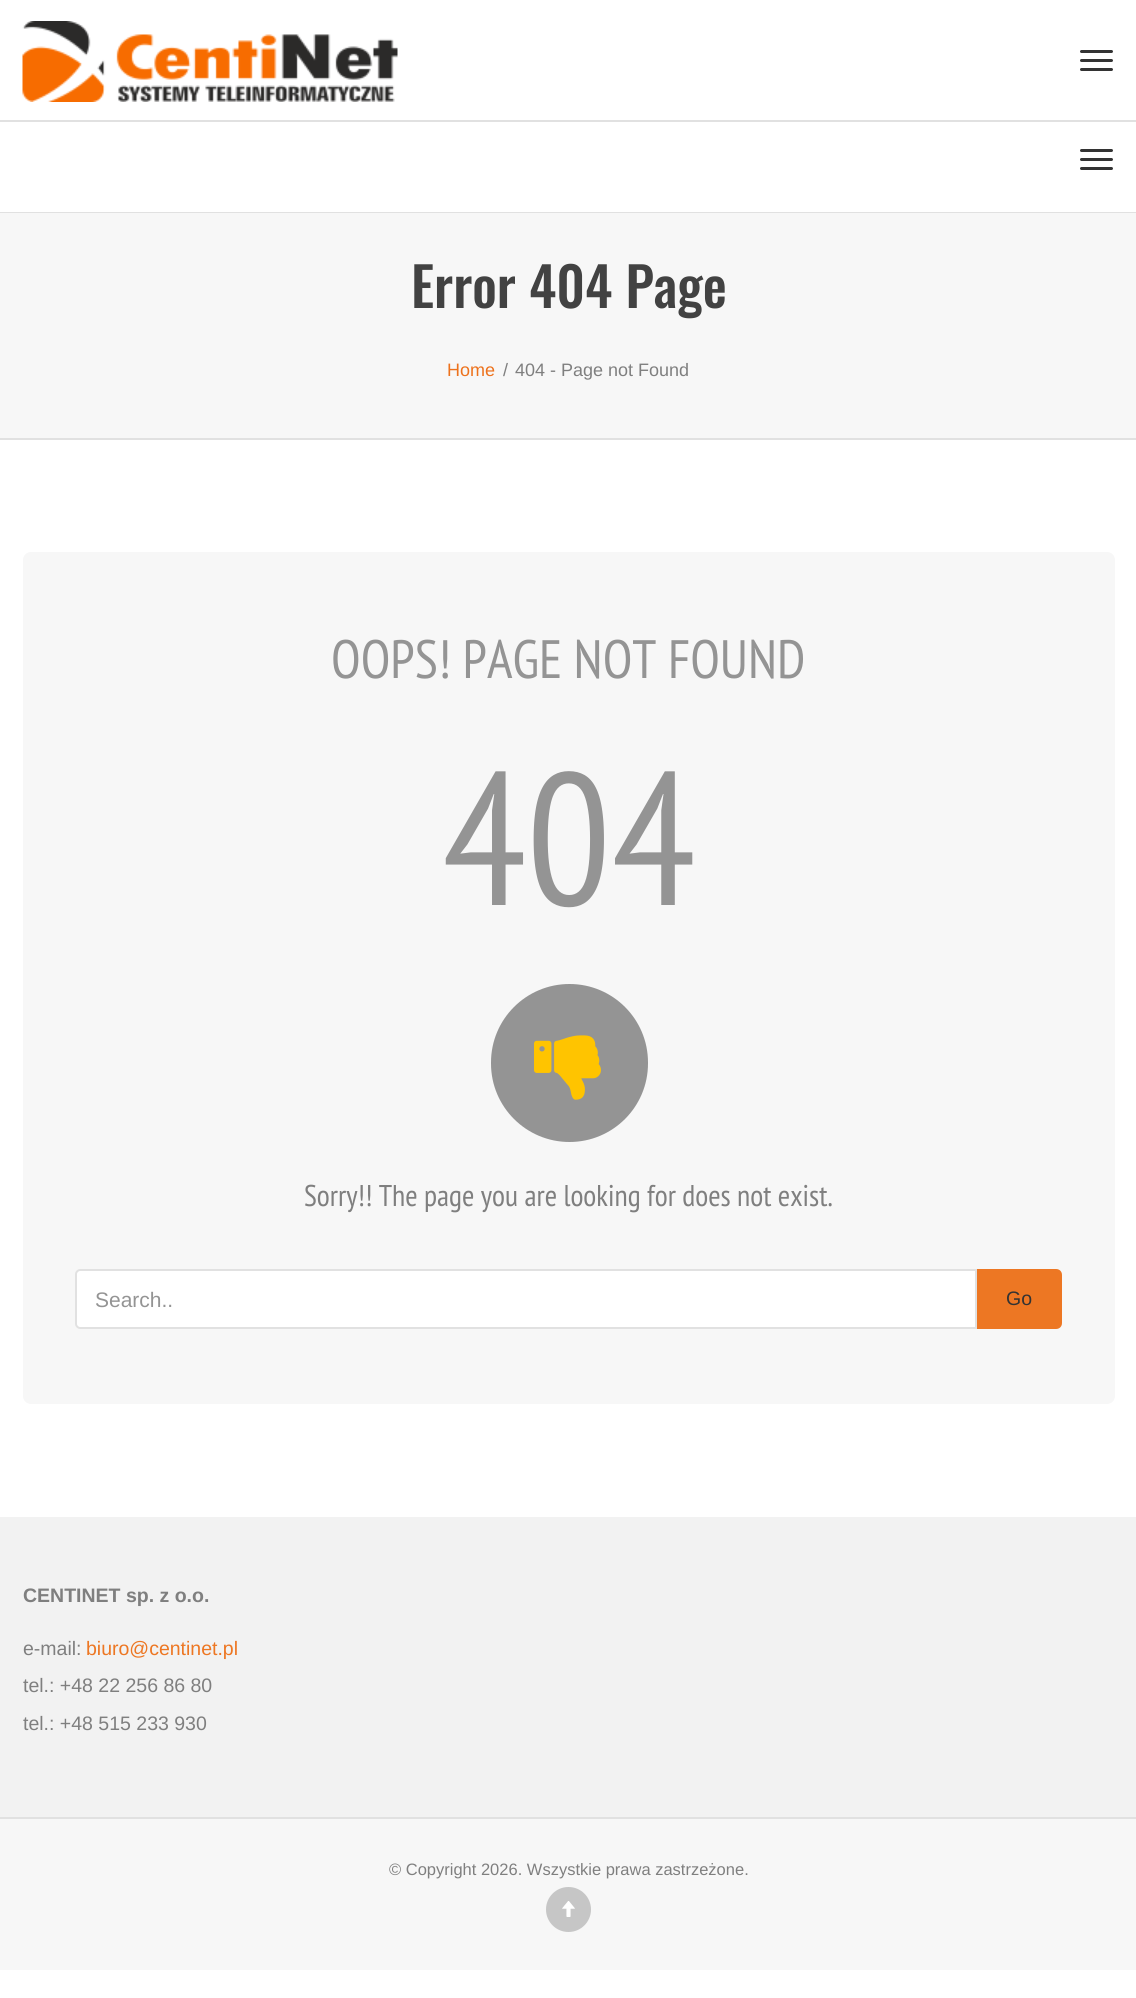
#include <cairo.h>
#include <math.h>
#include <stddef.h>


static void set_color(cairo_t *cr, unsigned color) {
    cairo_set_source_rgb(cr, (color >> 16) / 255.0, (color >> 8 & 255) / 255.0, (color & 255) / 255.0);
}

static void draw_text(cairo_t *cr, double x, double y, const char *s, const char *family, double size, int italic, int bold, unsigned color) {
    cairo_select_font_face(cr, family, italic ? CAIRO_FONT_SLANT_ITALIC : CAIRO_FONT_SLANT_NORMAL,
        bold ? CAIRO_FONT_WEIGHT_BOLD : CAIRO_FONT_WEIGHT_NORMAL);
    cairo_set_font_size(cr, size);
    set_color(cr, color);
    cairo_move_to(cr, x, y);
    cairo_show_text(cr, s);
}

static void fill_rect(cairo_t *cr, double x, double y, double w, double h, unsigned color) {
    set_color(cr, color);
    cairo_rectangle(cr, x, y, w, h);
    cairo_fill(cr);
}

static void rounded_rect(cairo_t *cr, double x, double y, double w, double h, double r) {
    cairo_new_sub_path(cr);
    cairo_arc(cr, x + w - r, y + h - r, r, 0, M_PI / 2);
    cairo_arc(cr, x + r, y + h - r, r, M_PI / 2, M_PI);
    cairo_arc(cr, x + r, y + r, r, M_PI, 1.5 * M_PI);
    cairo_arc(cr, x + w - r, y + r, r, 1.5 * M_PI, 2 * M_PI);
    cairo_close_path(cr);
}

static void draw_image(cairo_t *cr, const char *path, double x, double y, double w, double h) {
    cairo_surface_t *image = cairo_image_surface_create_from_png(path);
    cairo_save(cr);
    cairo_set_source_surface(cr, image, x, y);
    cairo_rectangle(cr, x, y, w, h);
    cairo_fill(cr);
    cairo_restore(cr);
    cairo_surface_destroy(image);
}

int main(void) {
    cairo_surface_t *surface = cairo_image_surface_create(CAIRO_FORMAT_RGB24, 1136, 1998);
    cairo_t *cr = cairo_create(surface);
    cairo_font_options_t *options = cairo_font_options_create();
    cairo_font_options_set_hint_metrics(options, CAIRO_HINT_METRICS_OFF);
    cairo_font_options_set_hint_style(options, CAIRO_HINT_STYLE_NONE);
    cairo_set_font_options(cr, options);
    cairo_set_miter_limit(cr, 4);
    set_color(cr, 0xFFFFFF);
    cairo_paint(cr);
    fill_rect(cr, 0, 120, 1136, 2, 0xE1E1E1);
    draw_image(cr, "assets/img1.png", 22, 21, 376, 81);
    set_color(cr, 0x333333);
    rounded_rect(cr, 1080, 50, 33, 3, 1.5);
    cairo_fill(cr);
    rounded_rect(cr, 1080, 59, 33, 3, 1.5);
    cairo_fill(cr);
    rounded_rect(cr, 1080, 68, 33, 3, 1.5);
    cairo_fill(cr);
    rounded_rect(cr, 1080, 149, 33, 3, 1.5);
    cairo_fill(cr);
    rounded_rect(cr, 1080, 158, 33, 3, 1.5);
    cairo_fill(cr);
    rounded_rect(cr, 1080, 167, 33, 3, 1.5);
    cairo_fill(cr);
    fill_rect(cr, 0, 212, 1136, 1, 0xE1E1E1);
    fill_rect(cr, 0, 213, 1136, 225, 0xF7F7F7);
    fill_rect(cr, 0, 438, 1136, 2, 0xE1E1E1);
    draw_text(cr, 411, 308, "Error 404 Page", "Oswald Medium", 54, 0, 0, 0x424242);
    draw_text(cr, 447, 376, "Home", "Liberation Sans", 18, 0, 0, 0xED721D);
    draw_text(cr, 503, 376, "/", "Liberation Sans", 18, 0, 0, 0x7F7F7F);
    draw_text(cr, 515, 376, "404 - Page not Found", "Liberation Sans", 18, 0, 0, 0x7F7F7F);
    set_color(cr, 0xF7F7F7);
    rounded_rect(cr, 23, 552, 1092, 852, 8);
    cairo_fill(cr);
    draw_text(cr, 331, 678, "OOPS! PAGE NOT FOUND", "PT Sans Narrow", 54, 0, 0, 0x949494);
    draw_text(cr, 442, 905, "404", "PT Sans Narrow", 188, 0, 0, 0x949494);
    rounded_rect(cr, 491, 984, 157, 158, 78.5);
    cairo_fill(cr);
    draw_image(cr, "assets/img2.png", 534, 1035, 67, 65);
    draw_text(cr, 304, 1206, "Sorry!! The page you are looking for does not exist.", "PT Sans Narrow", 30, 0, 0, 0x7F7F7F);
    set_color(cr, 0xFFFFFF);
    cairo_new_path(cr);
    cairo_move_to(cr, 80, 1270);
    cairo_line_to(cr, 976, 1270);
    cairo_line_to(cr, 976, 1328);
    cairo_line_to(cr, 80, 1328);
    cairo_curve_to(cr, 78, 1328, 76, 1326, 76, 1324);
    cairo_line_to(cr, 76, 1274);
    cairo_curve_to(cr, 76, 1272, 78, 1270, 80, 1270);
    cairo_close_path(cr);
    cairo_fill_preserve(cr);
    set_color(cr, 0xE1E1E1);
    cairo_stroke(cr);
    draw_text(cr, 95, 1307, "Search..", "Liberation Sans", 21, 0, 0, 0x949494);
    set_color(cr, 0xED7723);
    cairo_new_path(cr);
    cairo_move_to(cr, 977, 1269);
    cairo_line_to(cr, 1056, 1269);
    cairo_curve_to(cr, 1059.5, 1269, 1062, 1271.5, 1062, 1275);
    cairo_line_to(cr, 1062, 1323);
    cairo_curve_to(cr, 1062, 1326.5, 1059.5, 1329, 1056, 1329);
    cairo_line_to(cr, 977, 1329);
    cairo_close_path(cr);
    cairo_fill(cr);
    draw_text(cr, 1006, 1305, "Go", "Liberation Sans", 19.5, 0, 0, 0x333333);
    fill_rect(cr, 0, 1517, 1136, 300, 0xF2F2F2);
    draw_text(cr, 23, 1602, "CENTINET sp. z o.o.", "Arimo", 19.5, 0, 1, 0x7F7F7F);
    draw_text(cr, 23, 1655, "e-mail:", "Arimo", 19.5, 0, 0, 0x7F7F7F);
    draw_text(cr, 86, 1655, "biuro@centinet.pl", "Arimo", 19.5, 0, 0, 0xED7723);
    draw_text(cr, 23, 1692, "tel.: +48 22 256 86 80", "Arimo", 19.5, 0, 0, 0x7F7F7F);
    draw_text(cr, 23, 1730, "tel.: +48 515 233 930", "Arimo", 19.5, 0, 0, 0x7F7F7F);
    fill_rect(cr, 0, 1819, 1136, 151, 0xF7F7F7);
    fill_rect(cr, 0, 1817, 1136, 2, 0xE1E1E1);
    draw_text(cr, 389, 1875, "© Copyright 2026. Wszystkie prawa zastrzeżone.", "Liberation Sans", 16.5, 0, 0, 0x7F7F7F);
    set_color(cr, 0xC6C6C6);
    cairo_new_path(cr);
    cairo_arc(cr, 568.5, 1909.5, 22.5, 0, 2 * M_PI);
    cairo_fill(cr);
    draw_image(cr, "assets/img3.png", 562, 1901, 13, 16);
    cairo_surface_write_to_png(surface, "output.png");
    cairo_font_options_destroy(options);
    cairo_destroy(cr);
    cairo_surface_destroy(surface);
    return 0;
}
